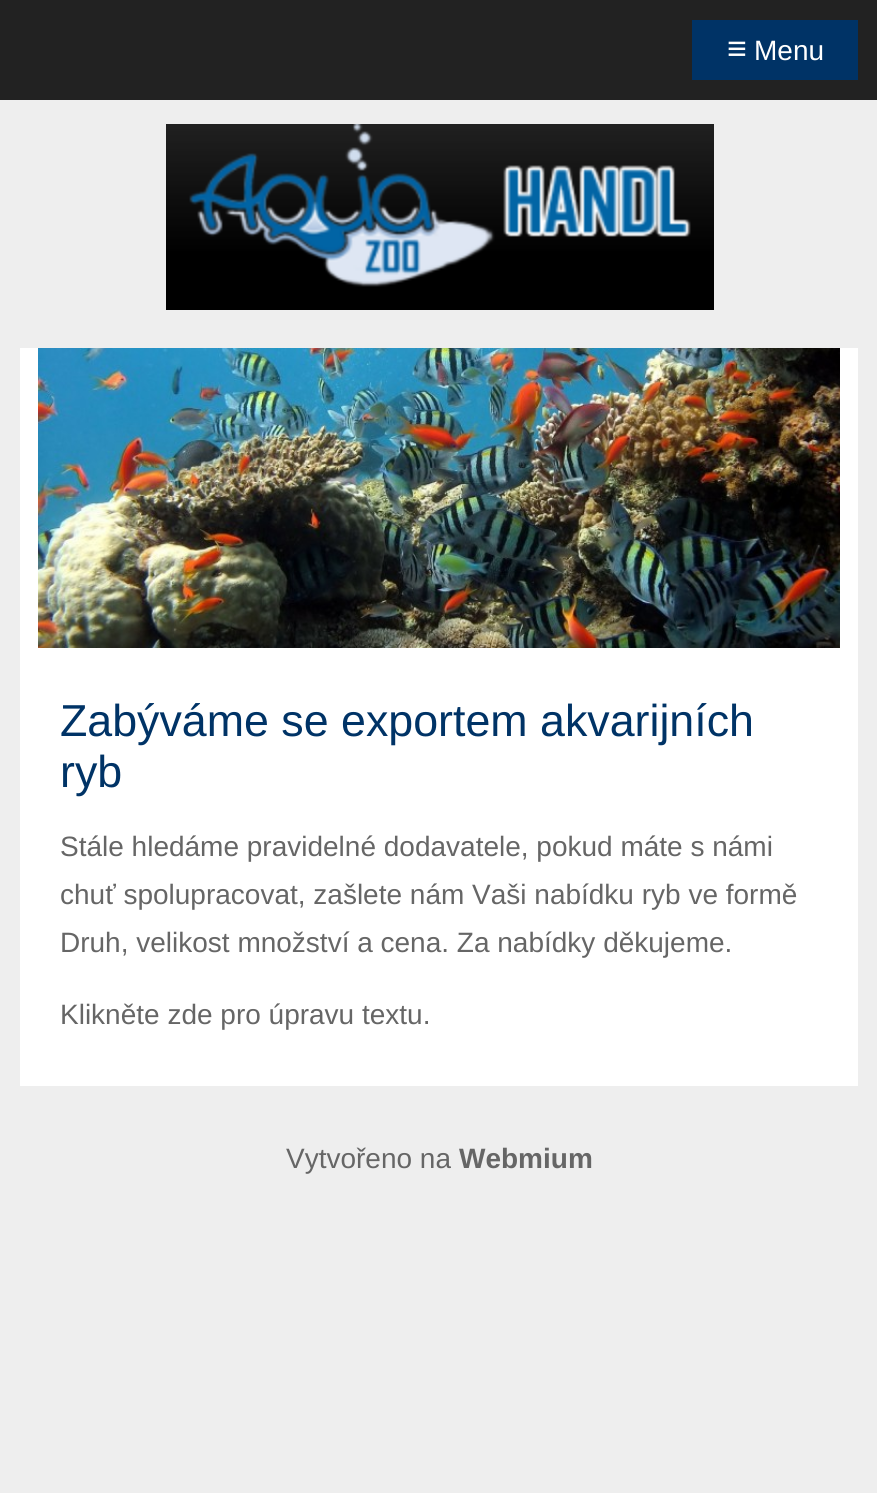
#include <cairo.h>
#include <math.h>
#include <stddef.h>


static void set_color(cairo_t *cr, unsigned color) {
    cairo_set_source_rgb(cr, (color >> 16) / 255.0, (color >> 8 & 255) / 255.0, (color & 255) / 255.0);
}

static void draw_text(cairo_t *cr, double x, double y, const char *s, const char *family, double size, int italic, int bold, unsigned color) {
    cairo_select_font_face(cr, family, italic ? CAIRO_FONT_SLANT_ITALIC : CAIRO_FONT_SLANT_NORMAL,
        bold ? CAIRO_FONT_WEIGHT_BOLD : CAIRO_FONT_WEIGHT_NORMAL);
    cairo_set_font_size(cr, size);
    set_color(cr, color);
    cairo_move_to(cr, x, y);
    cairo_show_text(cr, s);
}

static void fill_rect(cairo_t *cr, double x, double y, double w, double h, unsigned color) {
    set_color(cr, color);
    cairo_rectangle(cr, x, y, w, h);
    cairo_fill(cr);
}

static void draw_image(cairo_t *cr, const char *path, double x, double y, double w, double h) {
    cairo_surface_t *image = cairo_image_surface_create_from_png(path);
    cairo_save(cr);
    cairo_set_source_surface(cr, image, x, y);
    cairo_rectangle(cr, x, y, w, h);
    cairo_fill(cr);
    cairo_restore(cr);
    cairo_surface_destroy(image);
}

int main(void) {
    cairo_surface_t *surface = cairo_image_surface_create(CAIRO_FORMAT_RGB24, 877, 1493);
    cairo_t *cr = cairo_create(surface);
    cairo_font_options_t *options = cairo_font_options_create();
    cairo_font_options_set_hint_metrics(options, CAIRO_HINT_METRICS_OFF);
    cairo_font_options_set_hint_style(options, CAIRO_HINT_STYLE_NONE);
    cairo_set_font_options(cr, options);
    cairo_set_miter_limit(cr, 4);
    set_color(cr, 0xEEEEEE);
    cairo_paint(cr);
    fill_rect(cr, 0, 0, 877, 100, 0x222222);
    fill_rect(cr, 692, 20, 166, 60, 0x003366);
    draw_text(cr, 727, 60, "≡", "Liberation Sans", 34, 0, 0, 0xFFFFFF);
    draw_text(cr, 754, 60, "Menu", "Liberation Sans", 28, 0, 0, 0xFFFFFF);
    draw_image(cr, "assets/img1.png", 166, 124, 548, 186);
    fill_rect(cr, 20, 348, 838, 738, 0xFFFFFF);
    draw_image(cr, "assets/img2.png", 38, 348, 802, 300);
    draw_text(cr, 60, 736, "Zabýváme se exportem akvarijních", "Liberation Sans", 44.75, 0, 0, 0x003366);
    draw_text(cr, 60, 787, "ryb", "Liberation Sans", 44.75, 0, 0, 0x003366);
    draw_text(cr, 60, 856, "Stále hledáme pravidelné dodavatele, pokud máte s námi", "Liberation Sans", 28, 0, 0, 0x666666);
    draw_text(cr, 60, 904, "chuť spolupracovat, zašlete nám Vaši nabídku ryb ve formě", "Liberation Sans", 28, 0, 0, 0x666666);
    draw_text(cr, 60, 952, "Druh, velikost množství a cena. Za nabídky děkujeme.", "Liberation Sans", 28, 0, 0, 0x666666);
    draw_text(cr, 60, 1024, "Klikněte zde pro úpravu textu.", "Liberation Sans", 28, 0, 0, 0x666666);
    draw_text(cr, 286, 1168, "Vytvořeno na", "Liberation Sans", 28, 0, 0, 0x666666);
    draw_text(cr, 459, 1168, "Webmium", "Liberation Sans", 28, 0, 1, 0x666666);
    cairo_surface_write_to_png(surface, "output.png");
    cairo_font_options_destroy(options);
    cairo_destroy(cr);
    cairo_surface_destroy(surface);
    return 0;
}
